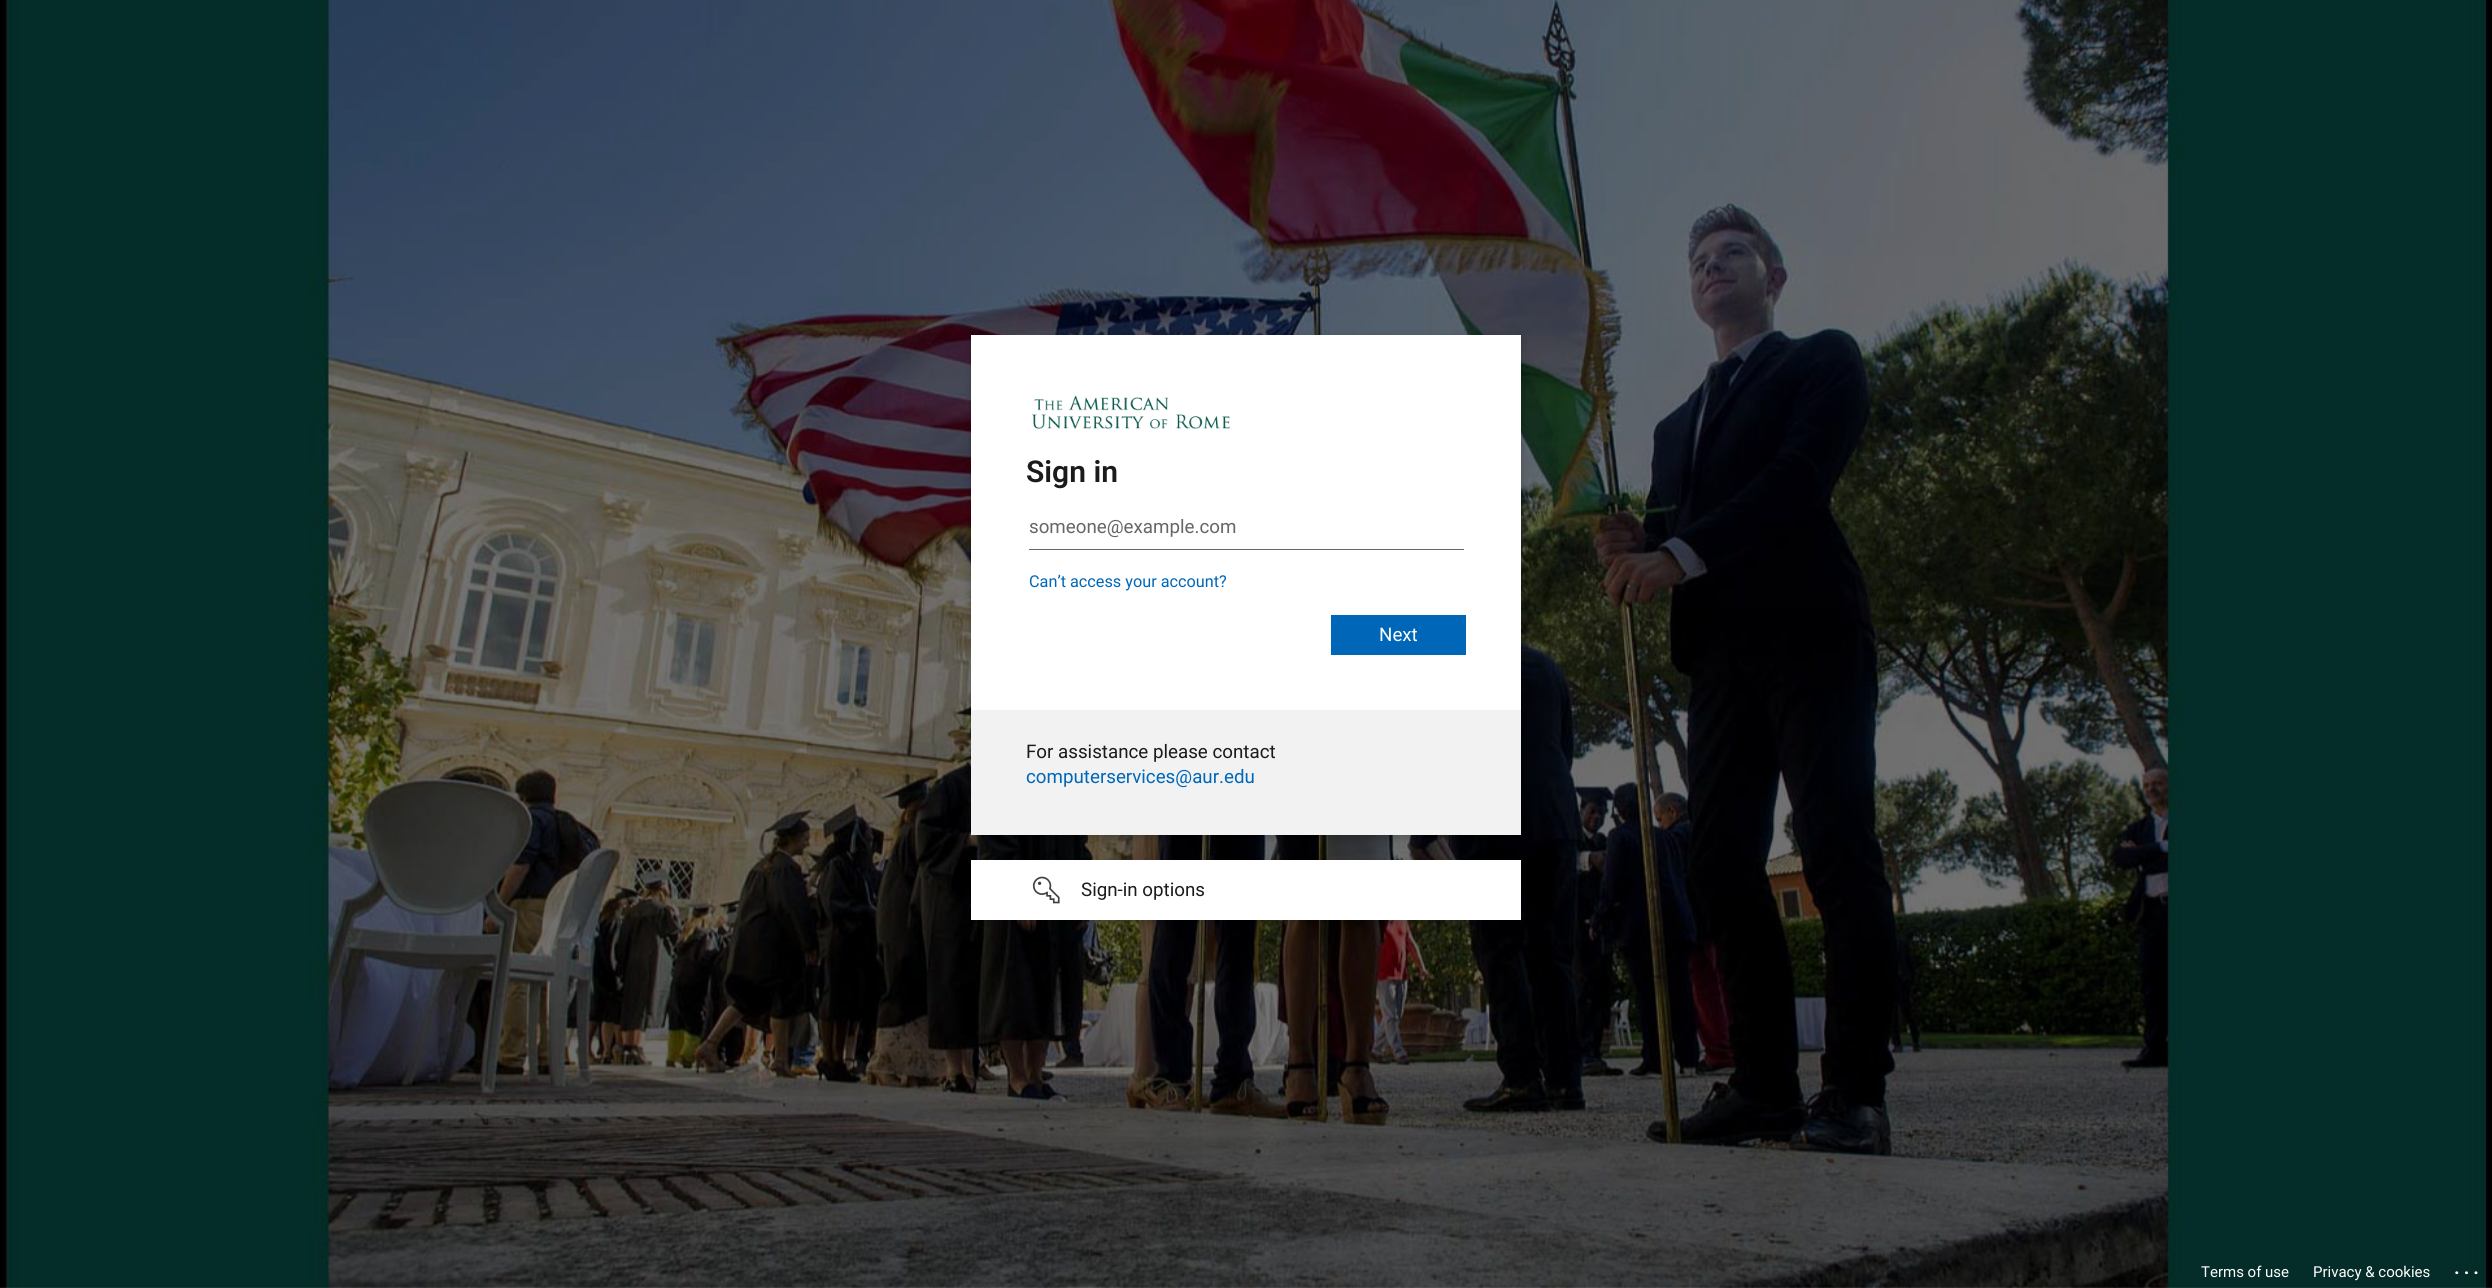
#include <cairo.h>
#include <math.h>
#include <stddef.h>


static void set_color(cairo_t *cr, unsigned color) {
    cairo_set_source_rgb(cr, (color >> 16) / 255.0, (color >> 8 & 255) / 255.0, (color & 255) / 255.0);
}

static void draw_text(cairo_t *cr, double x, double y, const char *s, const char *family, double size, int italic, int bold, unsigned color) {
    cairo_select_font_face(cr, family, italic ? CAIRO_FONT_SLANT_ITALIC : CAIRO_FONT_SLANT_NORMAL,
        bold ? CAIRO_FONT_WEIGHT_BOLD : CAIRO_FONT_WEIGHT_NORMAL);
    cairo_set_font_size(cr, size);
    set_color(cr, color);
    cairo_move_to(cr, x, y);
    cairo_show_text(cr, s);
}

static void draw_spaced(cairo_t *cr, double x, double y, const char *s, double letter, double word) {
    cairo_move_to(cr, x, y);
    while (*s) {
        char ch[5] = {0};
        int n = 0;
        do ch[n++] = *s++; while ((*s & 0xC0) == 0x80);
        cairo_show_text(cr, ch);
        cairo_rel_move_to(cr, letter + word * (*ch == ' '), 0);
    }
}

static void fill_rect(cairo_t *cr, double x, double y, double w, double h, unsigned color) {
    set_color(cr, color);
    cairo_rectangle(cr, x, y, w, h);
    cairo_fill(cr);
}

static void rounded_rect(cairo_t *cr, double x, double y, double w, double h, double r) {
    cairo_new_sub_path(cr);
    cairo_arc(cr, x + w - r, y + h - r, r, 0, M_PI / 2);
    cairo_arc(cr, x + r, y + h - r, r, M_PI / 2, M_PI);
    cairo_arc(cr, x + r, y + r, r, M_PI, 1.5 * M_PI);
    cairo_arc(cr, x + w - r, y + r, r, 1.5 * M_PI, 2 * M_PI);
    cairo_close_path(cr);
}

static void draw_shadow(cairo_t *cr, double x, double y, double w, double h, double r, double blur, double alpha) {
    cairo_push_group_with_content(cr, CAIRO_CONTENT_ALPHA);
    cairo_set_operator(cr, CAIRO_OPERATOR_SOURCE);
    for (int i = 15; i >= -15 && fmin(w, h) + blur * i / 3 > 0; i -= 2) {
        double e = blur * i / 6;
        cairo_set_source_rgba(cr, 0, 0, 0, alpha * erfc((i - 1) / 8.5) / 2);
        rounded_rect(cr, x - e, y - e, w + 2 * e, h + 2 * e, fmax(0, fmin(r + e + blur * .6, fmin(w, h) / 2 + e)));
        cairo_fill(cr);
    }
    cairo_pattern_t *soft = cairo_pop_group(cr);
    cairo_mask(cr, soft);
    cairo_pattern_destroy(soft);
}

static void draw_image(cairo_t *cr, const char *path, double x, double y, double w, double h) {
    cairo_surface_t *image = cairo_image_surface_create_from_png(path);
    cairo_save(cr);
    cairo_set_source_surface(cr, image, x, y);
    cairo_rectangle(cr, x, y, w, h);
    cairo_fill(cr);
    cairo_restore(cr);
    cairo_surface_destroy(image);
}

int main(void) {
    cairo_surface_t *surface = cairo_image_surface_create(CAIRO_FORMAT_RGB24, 2492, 1288);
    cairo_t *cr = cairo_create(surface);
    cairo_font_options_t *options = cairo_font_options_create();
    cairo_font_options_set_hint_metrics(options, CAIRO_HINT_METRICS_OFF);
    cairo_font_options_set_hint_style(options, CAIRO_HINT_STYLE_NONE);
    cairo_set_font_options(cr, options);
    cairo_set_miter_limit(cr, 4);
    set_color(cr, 0xFFFFFF);
    cairo_paint(cr);
    draw_image(cr, "assets/img1.png", 0, 0, 2492, 1288);
    set_color(cr, 0x000000);
    draw_shadow(cr, 971, 338, 550, 500, 0, 4, 0.2);
    fill_rect(cr, 971, 335, 550, 375, 0xFFFFFF);
    draw_image(cr, "assets/img2.png", 1031, 395, 199, 34);
    draw_text(cr, 1026, 482, "Sign in", "Roboto SemiBold", 30, 0, 0, 0x1B1B1B);
    fill_rect(cr, 1029, 549, 435, 1, 0x666666);
    draw_text(cr, 1029, 533, "someone@example.com", "Roboto", 18.75, 0, 0, 0x666666);
    draw_text(cr, 1029, 587, "Can’t access your account?", "Roboto", 16.25, 0, 0, 0x0067B8);
    fill_rect(cr, 1331, 615, 135, 40, 0x0067B8);
    draw_text(cr, 1379, 641, "Next", "Roboto", 18.75, 0, 0, 0xFFFFFF);
    fill_rect(cr, 971, 710, 550, 125, 0xF2F2F2);
    draw_text(cr, 1026, 758, "For assistance please contact", "Roboto", 18.75, 0, 0, 0x1B1B1B);
    draw_text(cr, 1026, 783, "computerservices@aur.edu", "Roboto", 18.75, 0, 0, 0x0067B8);
    set_color(cr, 0x000000);
    draw_shadow(cr, 971, 863, 550, 60, 0, 4, 0.2);
    fill_rect(cr, 971, 860, 550, 60, 0xFFFFFF);
    draw_image(cr, "assets/img3.png", 1032, 876, 28, 28);
    draw_text(cr, 1081, 896, "Sign-in options", "Roboto", 18.75, 0, 0, 0x1B1B1B);
    draw_text(cr, 2201, 1277, "Terms of use", "Roboto", 15, 0, 0, 0xFFFFFF);
    draw_text(cr, 2313, 1277, "Privacy & cookies", "Roboto", 15, 0, 0, 0xFFFFFF);
    cairo_select_font_face(cr, "Roboto SemiBold", CAIRO_FONT_SLANT_NORMAL, CAIRO_FONT_WEIGHT_NORMAL);
    cairo_set_font_size(cr, 20);
    draw_spaced(cr, 2454, 1274, "...", 4, 0);
    cairo_surface_write_to_png(surface, "output.png");
    cairo_font_options_destroy(options);
    cairo_destroy(cr);
    cairo_surface_destroy(surface);
    return 0;
}
